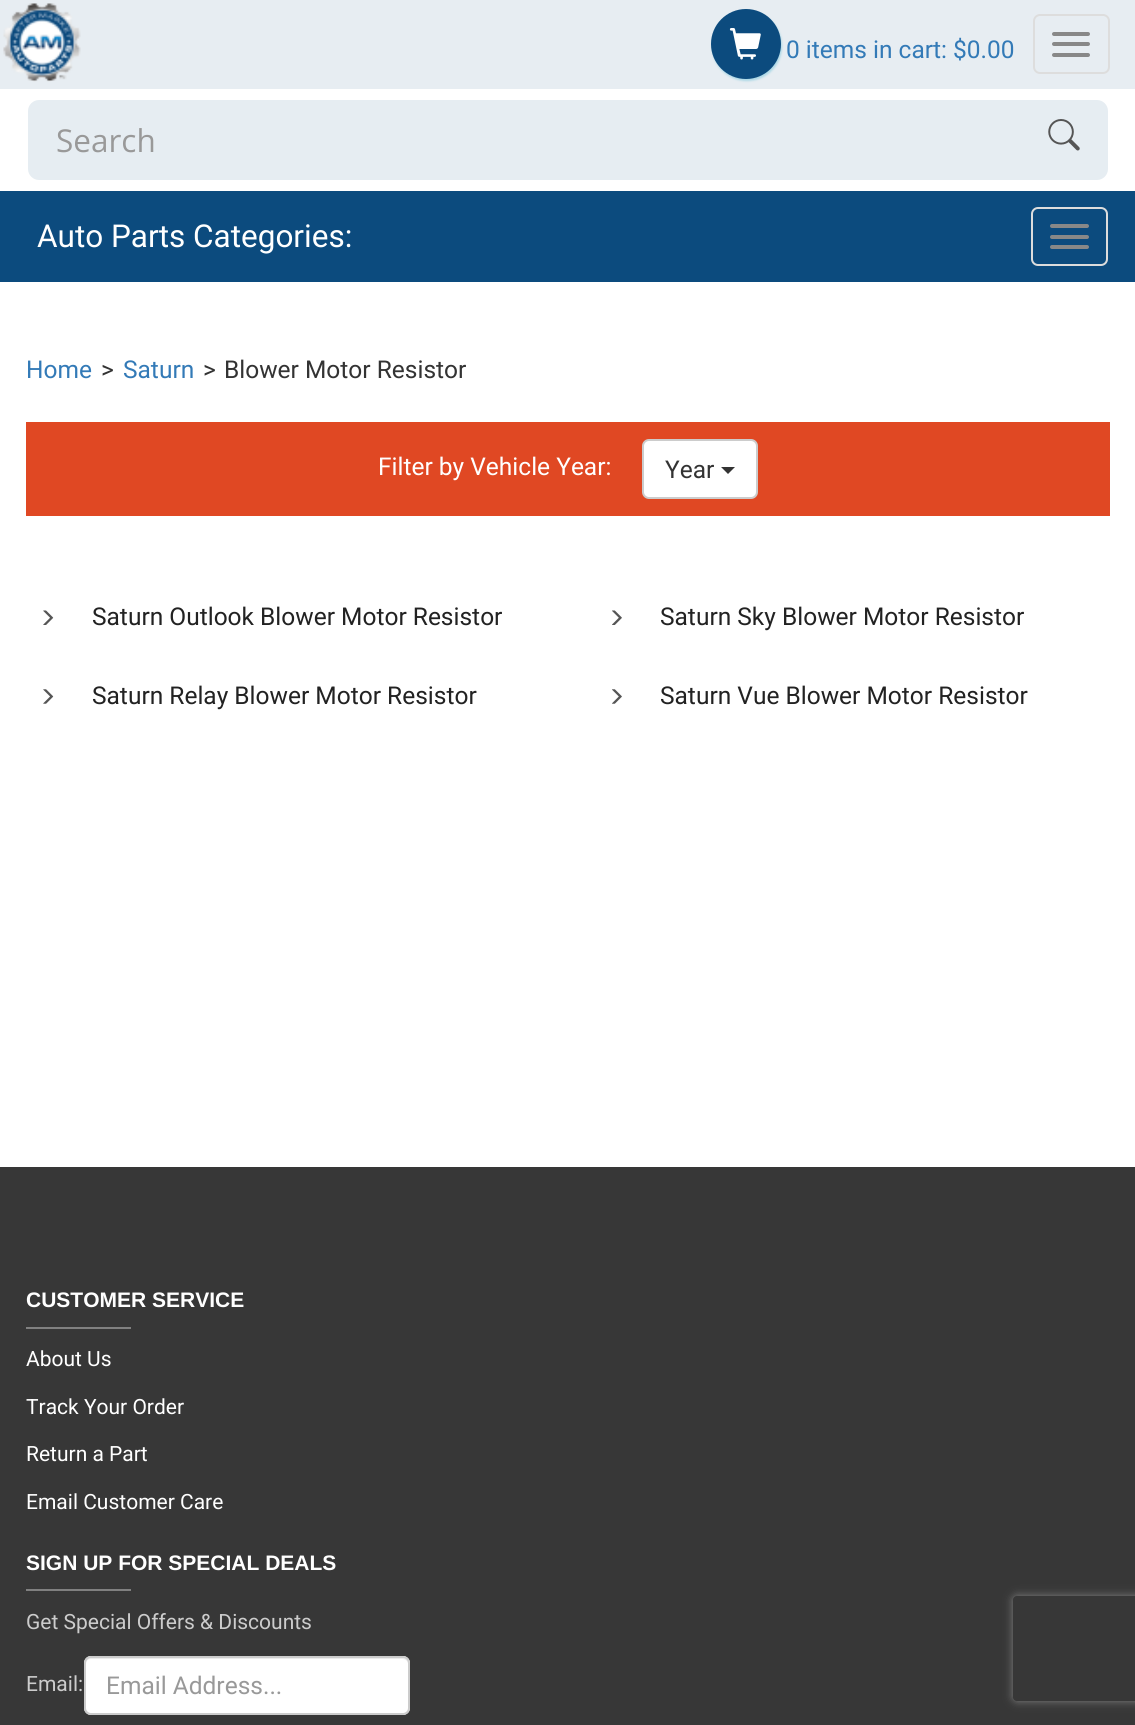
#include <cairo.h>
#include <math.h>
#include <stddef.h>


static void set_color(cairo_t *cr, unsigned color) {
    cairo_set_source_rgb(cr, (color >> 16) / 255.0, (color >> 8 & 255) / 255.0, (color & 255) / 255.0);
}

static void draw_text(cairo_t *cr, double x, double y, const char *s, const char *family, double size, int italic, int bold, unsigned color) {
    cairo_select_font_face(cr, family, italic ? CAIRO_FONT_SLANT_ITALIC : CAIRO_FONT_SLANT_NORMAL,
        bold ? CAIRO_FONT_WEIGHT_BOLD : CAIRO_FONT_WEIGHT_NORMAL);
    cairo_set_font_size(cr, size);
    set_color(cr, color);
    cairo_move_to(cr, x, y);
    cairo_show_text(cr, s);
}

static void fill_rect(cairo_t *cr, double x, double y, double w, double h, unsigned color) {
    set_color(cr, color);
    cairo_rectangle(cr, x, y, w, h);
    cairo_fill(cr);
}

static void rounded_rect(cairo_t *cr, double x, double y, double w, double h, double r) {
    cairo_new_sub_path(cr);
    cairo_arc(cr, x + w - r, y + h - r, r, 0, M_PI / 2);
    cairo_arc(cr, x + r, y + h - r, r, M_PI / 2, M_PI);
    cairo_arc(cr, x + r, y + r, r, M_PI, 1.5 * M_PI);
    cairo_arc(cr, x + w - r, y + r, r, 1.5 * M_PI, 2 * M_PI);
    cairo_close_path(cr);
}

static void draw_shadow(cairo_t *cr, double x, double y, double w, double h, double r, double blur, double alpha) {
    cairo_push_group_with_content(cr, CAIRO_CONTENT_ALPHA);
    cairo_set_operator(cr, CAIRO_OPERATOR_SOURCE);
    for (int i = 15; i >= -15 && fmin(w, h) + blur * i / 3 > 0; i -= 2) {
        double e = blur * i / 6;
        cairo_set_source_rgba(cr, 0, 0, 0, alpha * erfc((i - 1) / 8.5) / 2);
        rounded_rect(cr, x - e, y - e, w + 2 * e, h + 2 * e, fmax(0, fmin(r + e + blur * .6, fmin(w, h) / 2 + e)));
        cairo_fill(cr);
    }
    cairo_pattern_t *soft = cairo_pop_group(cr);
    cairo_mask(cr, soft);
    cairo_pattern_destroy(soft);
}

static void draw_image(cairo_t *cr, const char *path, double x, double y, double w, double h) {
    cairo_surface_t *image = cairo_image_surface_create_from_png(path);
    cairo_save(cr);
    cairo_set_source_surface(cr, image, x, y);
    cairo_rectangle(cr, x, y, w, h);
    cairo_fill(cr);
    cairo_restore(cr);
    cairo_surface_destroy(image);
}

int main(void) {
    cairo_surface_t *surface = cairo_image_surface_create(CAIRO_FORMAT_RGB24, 1135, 1725);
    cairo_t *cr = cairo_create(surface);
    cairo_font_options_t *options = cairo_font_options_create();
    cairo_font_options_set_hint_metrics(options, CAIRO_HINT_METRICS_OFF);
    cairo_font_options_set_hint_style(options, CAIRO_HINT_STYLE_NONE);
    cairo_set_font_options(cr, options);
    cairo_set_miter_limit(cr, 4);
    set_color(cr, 0xFFFFFF);
    cairo_paint(cr);
    fill_rect(cr, 0, 0, 1135, 89, 0xE7EDF2);
    draw_image(cr, "assets/img1.png", 3, 3, 78, 79);
    set_color(cr, 0xADD8E6);
    draw_shadow(cr, 712, 11, 70, 70, 35, 1, 1);
    set_color(cr, 0x0C4B7E);
    cairo_arc(cr, 746, 44, 35, 0, 2 * M_PI);
    cairo_fill(cr);
    draw_image(cr, "assets/img2.png", 729, 28, 32, 32);
    draw_text(cr, 786, 58, "0 items in cart: $0.00", "Roboto", 24.5, 0, 0, 0x337AB7);
    rounded_rect(cr, 1034, 15, 75, 58, 6);
    set_color(cr, 0xDDDDDD);
    cairo_stroke(cr);
    set_color(cr, 0x888888);
    rounded_rect(cr, 1052, 32, 38, 4, 2);
    cairo_fill(cr);
    rounded_rect(cr, 1052, 42, 38, 4, 2);
    cairo_fill(cr);
    rounded_rect(cr, 1052, 53, 38, 4, 2);
    cairo_fill(cr);
    set_color(cr, 0xE6EDF2);
    cairo_new_path(cr);
    cairo_move_to(cr, 39, 100);
    cairo_line_to(cr, 1020, 100);
    cairo_line_to(cr, 1020, 180);
    cairo_line_to(cr, 39, 180);
    cairo_curve_to(cr, 33, 180, 28, 175, 28, 169);
    cairo_line_to(cr, 28, 111);
    cairo_curve_to(cr, 28, 105, 33, 100, 39, 100);
    cairo_close_path(cr);
    cairo_fill(cr);
    draw_text(cr, 56, 152, "Search", "Open Sans", 31.5, 0, 0, 0x999999);
    set_color(cr, 0xE6EDF2);
    cairo_new_path(cr);
    cairo_move_to(cr, 1020, 100);
    cairo_line_to(cr, 1097, 100);
    cairo_curve_to(cr, 1103, 100, 1108, 105, 1108, 111);
    cairo_line_to(cr, 1108, 169);
    cairo_curve_to(cr, 1108, 175, 1103, 180, 1097, 180);
    cairo_line_to(cr, 1020, 180);
    cairo_close_path(cr);
    cairo_fill(cr);
    draw_image(cr, "assets/img3.png", 1048, 119, 32, 32);
    fill_rect(cr, 0, 191, 1135, 91, 0x0C4B7E);
    draw_text(cr, 37, 247, "Auto Parts Categories:", "Roboto", 31.5, 0, 0, 0xFFFFFF);
    rounded_rect(cr, 1032, 208, 75, 57, 6);
    set_color(cr, 0xDDDDDD);
    cairo_stroke(cr);
    set_color(cr, 0x888888);
    rounded_rect(cr, 1050, 224, 39, 4, 2);
    cairo_fill(cr);
    rounded_rect(cr, 1050, 235, 39, 4, 2);
    cairo_fill(cr);
    rounded_rect(cr, 1050, 245, 39, 4, 2);
    cairo_fill(cr);
    draw_text(cr, 26, 378, "Home", "Roboto", 24.5, 0, 0, 0x337AB7);
    draw_text(cr, 101, 378, ">", "Roboto", 24.5, 0, 0, 0x333333);
    draw_text(cr, 123, 378, "Saturn", "Roboto", 24.5, 0, 0, 0x337AB7);
    draw_text(cr, 203, 378, ">", "Roboto", 24.5, 0, 0, 0x333333);
    draw_text(cr, 224, 378, "Blower Motor Resistor", "Roboto", 24.5, 0, 0, 0x333333);
    fill_rect(cr, 26, 422, 1084, 94, 0xE04823);
    draw_text(cr, 378, 475, "Filter by Vehicle Year:", "Roboto", 24.5, 0, 0, 0xFFFFFF);
    rounded_rect(cr, 643, 440, 114, 58, 6);
    cairo_fill_preserve(cr);
    set_color(cr, 0xCCCCCC);
    cairo_stroke(cr);
    draw_text(cr, 665, 478, "Year", "Roboto", 24.5, 0, 0, 0x333333);
    cairo_new_path(cr);
    cairo_move_to(cr, 721, 467);
    cairo_line_to(cr, 735, 467);
    cairo_line_to(cr, 728, 474);
    cairo_close_path(cr);
    cairo_fill(cr);
    draw_image(cr, "assets/img4.png", 43, 610, 11, 15);
    draw_text(cr, 92, 625, "Saturn Outlook Blower Motor Resistor", "Roboto", 24.5, 0, 0, 0x222222);
    draw_image(cr, "assets/img5.png", 43, 689, 11, 15);
    draw_text(cr, 92, 704, "Saturn Relay Blower Motor Resistor", "Roboto", 24.5, 0, 0, 0x222222);
    draw_image(cr, "assets/img6.png", 612, 610, 10, 15);
    draw_text(cr, 660, 625, "Saturn Sky Blower Motor Resistor", "Roboto", 24.5, 0, 0, 0x222222);
    draw_image(cr, "assets/img7.png", 612, 689, 10, 15);
    draw_text(cr, 660, 704, "Saturn Vue Blower Motor Resistor", "Roboto", 24.5, 0, 0, 0x222222);
    fill_rect(cr, 0, 1167, 1135, 558, 0x373737);
    draw_text(cr, 26, 1307, "CUSTOMER SERVICE", "Liberation Sans", 21, 0, 1, 0xFFFFFF);
    fill_rect(cr, 26, 1327, 105, 2, 0x808080);
    draw_text(cr, 26, 1366, "About Us", "Roboto", 21, 0, 0, 0xFFFFFF);
    draw_text(cr, 26, 1414, "Track Your Order", "Roboto", 21, 0, 0, 0xFFFFFF);
    draw_text(cr, 26, 1461, "Return a Part", "Roboto", 21, 0, 0, 0xFFFFFF);
    draw_text(cr, 26, 1509, "Email Customer Care", "Roboto", 21, 0, 0, 0xFFFFFF);
    draw_text(cr, 26, 1570, "SIGN UP FOR SPECIAL DEALS", "Liberation Sans", 21, 0, 1, 0xFFFFFF);
    fill_rect(cr, 26, 1589, 105, 2, 0x808080);
    draw_text(cr, 26, 1629, "Get Special Offers & Discounts", "Roboto", 21, 0, 0, 0xCCCCCC);
    draw_text(cr, 26, 1691, "Email:", "Roboto", 21, 0, 0, 0xCCCCCC);
    set_color(cr, 0xFFFFFF);
    rounded_rect(cr, 84, 1656, 326, 59, 7);
    cairo_fill(cr);
    set_color(cr, 0xECECEC);
    cairo_new_path(cr);
    cairo_move_to(cr, 91, 1659);
    cairo_line_to(cr, 402, 1659);
    cairo_curve_to(cr, 405, 1659, 408, 1661, 408, 1664);
    cairo_line_to(cr, 408, 1662);
    cairo_curve_to(cr, 408, 1659, 406, 1657, 403, 1657);
    cairo_line_to(cr, 91, 1657);
    cairo_curve_to(cr, 88, 1657, 86, 1659, 86, 1662);
    cairo_line_to(cr, 86, 1664);
    cairo_curve_to(cr, 86, 1661, 88, 1659, 91, 1659);
    cairo_close_path(cr);
    cairo_fill(cr);
    rounded_rect(cr, 85, 1657, 324, 57, 6);
    set_color(cr, 0xCCCCCC);
    cairo_stroke(cr);
    draw_text(cr, 106, 1694, "Email Address...", "Roboto", 24.5, 0, 0, 0x999999);
    cairo_save(cr);
    cairo_set_fill_rule(cr, CAIRO_FILL_RULE_EVEN_ODD);
    cairo_new_path(cr);
    cairo_move_to(cr, 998, 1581);
    cairo_line_to(cr, 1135, 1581);
    cairo_line_to(cr, 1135, 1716);
    cairo_line_to(cr, 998, 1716);
    cairo_close_path(cr);
    cairo_move_to(cr, 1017, 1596);
    cairo_line_to(cr, 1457, 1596);
    cairo_curve_to(cr, 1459, 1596, 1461, 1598, 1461, 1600);
    cairo_line_to(cr, 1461, 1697);
    cairo_curve_to(cr, 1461, 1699, 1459, 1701, 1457, 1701);
    cairo_line_to(cr, 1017, 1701);
    cairo_curve_to(cr, 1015, 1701, 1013, 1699, 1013, 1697);
    cairo_line_to(cr, 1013, 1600);
    cairo_curve_to(cr, 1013, 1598, 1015, 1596, 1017, 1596);
    cairo_close_path(cr);
    cairo_clip(cr);
    set_color(cr, 0x808080);
    draw_shadow(cr, 1013, 1596, 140, 105, 4, 4.5, 1);
    cairo_restore(cr);
    cairo_surface_write_to_png(surface, "output.png");
    cairo_font_options_destroy(options);
    cairo_destroy(cr);
    cairo_surface_destroy(surface);
    return 0;
}
